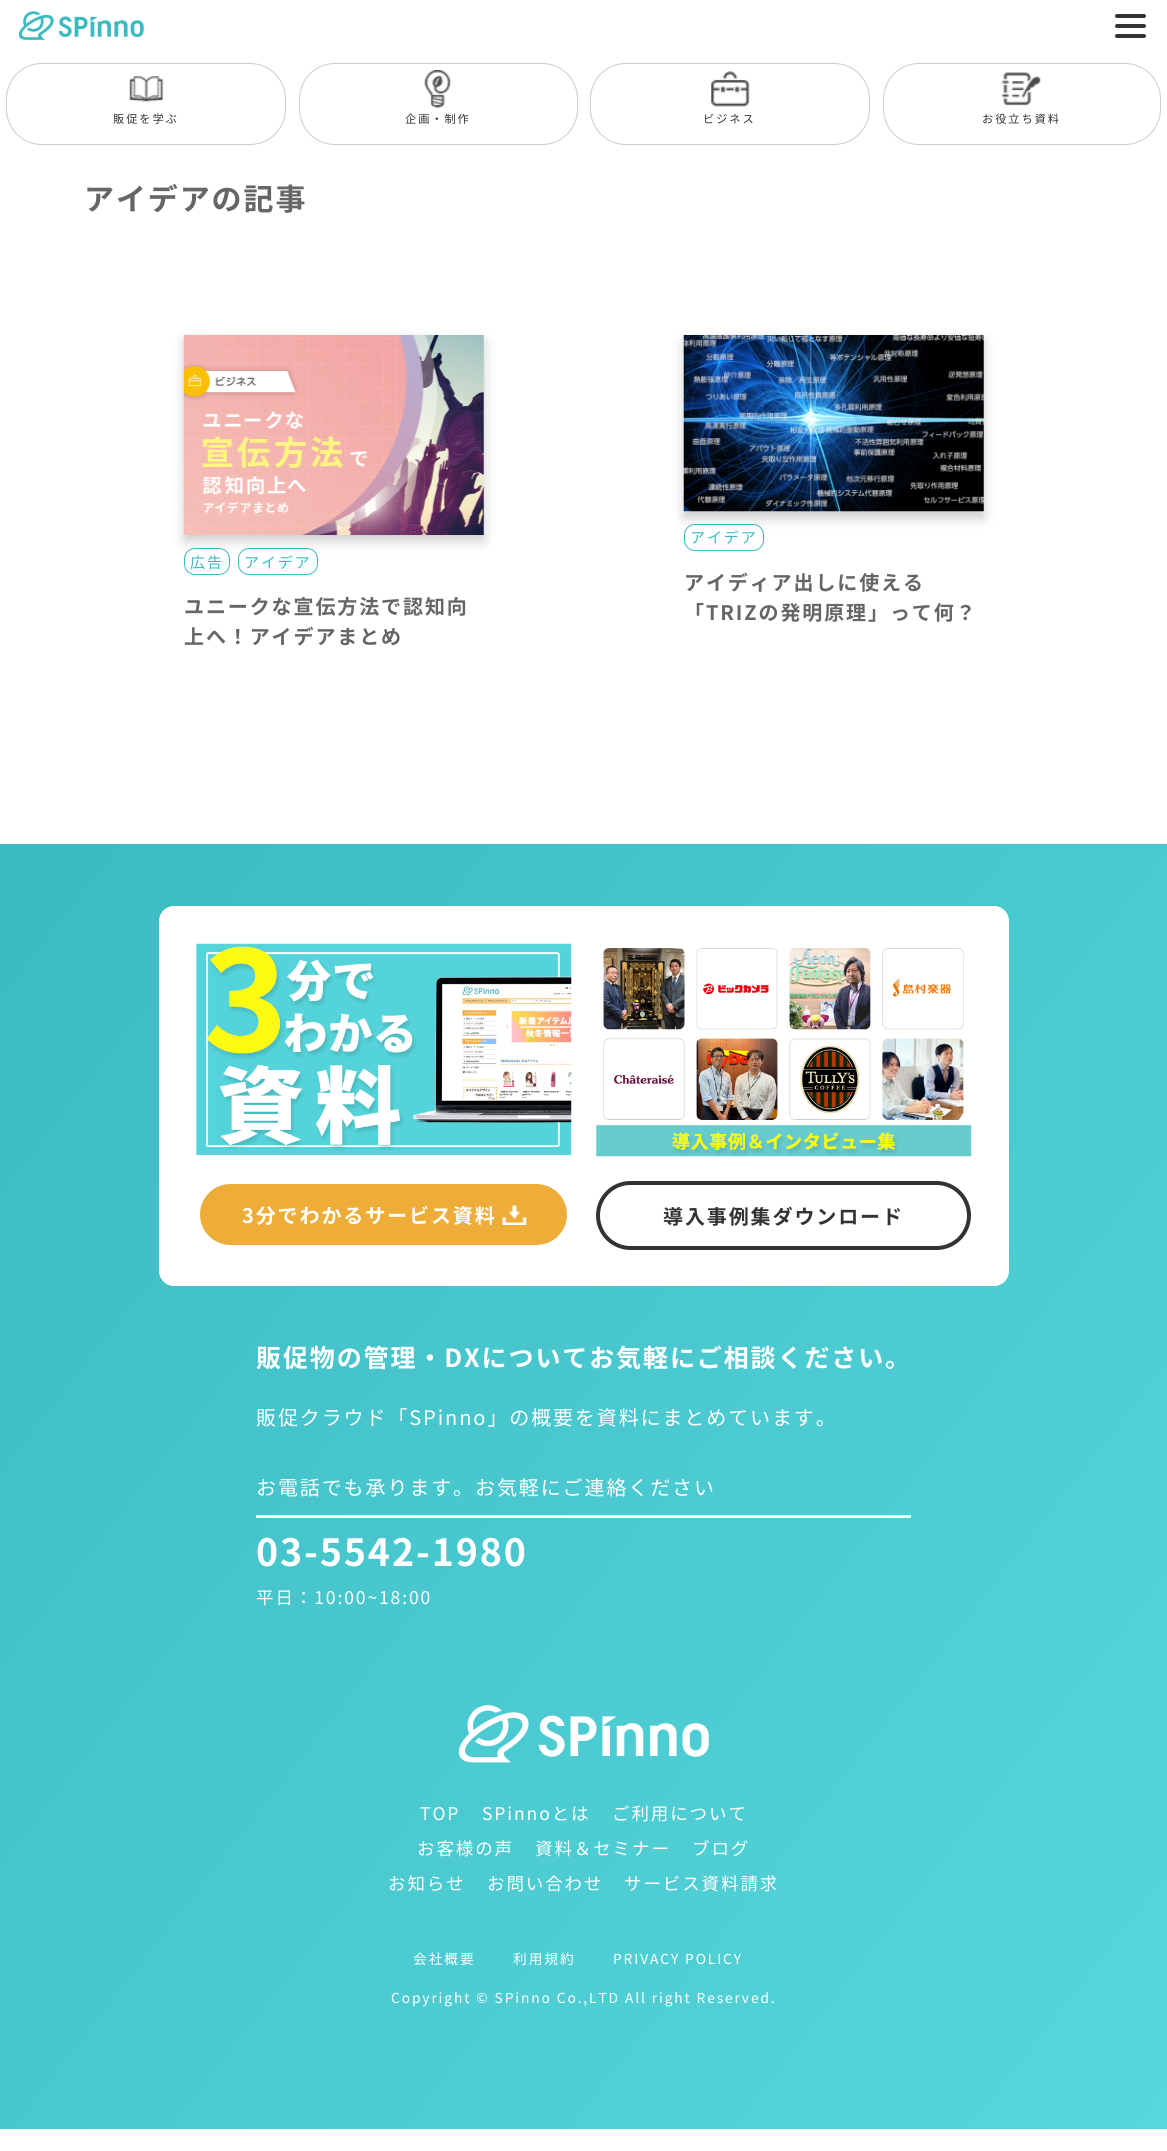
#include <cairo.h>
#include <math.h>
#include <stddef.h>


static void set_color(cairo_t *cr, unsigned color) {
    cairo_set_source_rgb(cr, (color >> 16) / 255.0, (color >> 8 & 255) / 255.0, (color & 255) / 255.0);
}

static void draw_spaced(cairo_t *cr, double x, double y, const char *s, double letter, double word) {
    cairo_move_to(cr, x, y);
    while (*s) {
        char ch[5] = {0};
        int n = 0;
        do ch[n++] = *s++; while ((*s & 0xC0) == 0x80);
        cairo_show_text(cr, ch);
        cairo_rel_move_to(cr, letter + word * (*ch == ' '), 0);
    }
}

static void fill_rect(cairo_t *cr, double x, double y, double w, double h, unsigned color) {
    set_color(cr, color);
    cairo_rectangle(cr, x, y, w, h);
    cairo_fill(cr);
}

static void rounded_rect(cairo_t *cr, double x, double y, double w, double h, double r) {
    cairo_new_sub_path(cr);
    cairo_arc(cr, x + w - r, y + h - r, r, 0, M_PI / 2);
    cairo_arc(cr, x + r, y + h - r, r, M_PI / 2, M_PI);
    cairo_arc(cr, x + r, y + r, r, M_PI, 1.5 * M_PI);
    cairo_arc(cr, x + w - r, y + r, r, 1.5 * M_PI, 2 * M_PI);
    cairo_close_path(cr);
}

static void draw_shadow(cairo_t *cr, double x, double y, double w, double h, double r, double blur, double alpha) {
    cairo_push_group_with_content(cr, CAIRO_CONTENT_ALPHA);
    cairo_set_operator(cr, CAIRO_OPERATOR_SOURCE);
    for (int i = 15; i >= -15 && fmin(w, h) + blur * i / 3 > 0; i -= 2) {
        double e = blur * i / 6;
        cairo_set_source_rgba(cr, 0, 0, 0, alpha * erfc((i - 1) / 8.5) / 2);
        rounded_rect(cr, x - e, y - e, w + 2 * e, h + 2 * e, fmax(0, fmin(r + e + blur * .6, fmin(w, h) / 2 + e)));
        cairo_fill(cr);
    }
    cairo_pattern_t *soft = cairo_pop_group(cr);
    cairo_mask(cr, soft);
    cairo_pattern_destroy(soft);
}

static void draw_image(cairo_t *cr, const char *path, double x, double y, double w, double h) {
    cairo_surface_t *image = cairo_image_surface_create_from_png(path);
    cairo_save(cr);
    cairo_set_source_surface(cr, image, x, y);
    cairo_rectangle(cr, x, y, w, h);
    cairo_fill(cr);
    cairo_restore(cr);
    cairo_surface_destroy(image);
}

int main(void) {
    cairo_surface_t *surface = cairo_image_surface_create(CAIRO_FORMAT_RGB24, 1167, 2151);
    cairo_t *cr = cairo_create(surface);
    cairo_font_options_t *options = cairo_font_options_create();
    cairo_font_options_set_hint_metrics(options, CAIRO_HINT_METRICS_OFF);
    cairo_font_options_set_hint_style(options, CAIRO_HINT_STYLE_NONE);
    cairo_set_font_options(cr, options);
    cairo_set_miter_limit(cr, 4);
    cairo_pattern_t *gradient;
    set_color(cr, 0xFFFFFF);
    cairo_paint(cr);
    draw_image(cr, "assets/img1.png", 19, 11, 125, 29);
    set_color(cr, 0x333333);
    rounded_rect(cr, 1115, 24, 31, 4, 2);
    cairo_fill(cr);
    rounded_rect(cr, 1115, 14, 31, 4, 2);
    cairo_fill(cr);
    rounded_rect(cr, 1115, 34, 31, 4, 2);
    cairo_fill(cr);
    rounded_rect(cr, 6.5, 63.5, 279, 81, 35.5);
    set_color(cr, 0xCCCCCC);
    cairo_set_line_width(cr, 1);
    cairo_stroke(cr);
    draw_image(cr, "assets/img2.png", 129, 76, 35, 26);
    cairo_select_font_face(cr, "Noto Sans JP", CAIRO_FONT_SLANT_NORMAL, CAIRO_FONT_WEIGHT_NORMAL);
    cairo_set_font_size(cr, 11.25);
    set_color(cr, 0x333333);
    draw_spaced(cr, 113, 123, "販促を学ぶ", 1.9, 0);
    rounded_rect(cr, 299.5, 63.5, 278, 81, 35.5);
    set_color(cr, 0xCCCCCC);
    cairo_stroke(cr);
    draw_image(cr, "assets/img3.png", 424, 70, 27, 38);
    set_color(cr, 0x333333);
    draw_spaced(cr, 405, 123, "企画・制作", 1.9, 0);
    rounded_rect(cr, 590.5, 63.5, 279, 81, 35.5);
    set_color(cr, 0xCCCCCC);
    cairo_stroke(cr);
    draw_image(cr, "assets/img4.png", 711, 71, 39, 36);
    set_color(cr, 0x333333);
    draw_spaced(cr, 703, 123, "ビジネス", 1.9, 0);
    rounded_rect(cr, 883.5, 63.5, 277, 81, 35.5);
    set_color(cr, 0xCCCCCC);
    cairo_stroke(cr);
    draw_image(cr, "assets/img5.png", 1002, 72, 39, 34);
    set_color(cr, 0x333333);
    draw_spaced(cr, 982, 123, "お役立ち資料", 1.9, 0);
    cairo_select_font_face(cr, "Noto Sans JP", CAIRO_FONT_SLANT_NORMAL, CAIRO_FONT_WEIGHT_BOLD);
    cairo_set_font_size(cr, 30);
    set_color(cr, 0x666666);
    draw_spaced(cr, 84, 210, "アイデアの記事", 1.9, 0);
    set_color(cr, 0x000000);
    draw_shadow(cr, 184, 341, 300, 200, 0, 6, 0.2);
    draw_image(cr, "assets/img6.png", 183, 335, 301, 200);
    rounded_rect(cr, 184.5, 548.5, 45, 26, 10.5);
    set_color(cr, 0x3CBAC2);
    cairo_stroke(cr);
    cairo_select_font_face(cr, "Noto Sans JP", CAIRO_FONT_SLANT_NORMAL, CAIRO_FONT_WEIGHT_NORMAL);
    cairo_set_font_size(cr, 15);
    draw_spaced(cr, 190, 568, "広告", 1.9, 0);
    rounded_rect(cr, 238.5, 548.5, 79, 26, 10.5);
    cairo_stroke(cr);
    draw_spaced(cr, 244, 568, "アイデア", 1.9, 0);
    cairo_select_font_face(cr, "Noto Sans JP", CAIRO_FONT_SLANT_NORMAL, CAIRO_FONT_WEIGHT_BOLD);
    cairo_set_font_size(cr, 20);
    set_color(cr, 0x666666);
    draw_spaced(cr, 184, 614, "ユニークな宣伝方法で認知向", 1.9, 0);
    draw_spaced(cr, 184, 644, "上へ！アイデアまとめ", 1.9, 0);
    set_color(cr, 0x000000);
    draw_shadow(cr, 684, 341, 300, 177, 0, 6, 0.2);
    draw_image(cr, "assets/img7.png", 683, 335, 301, 177);
    rounded_rect(cr, 684.5, 524.5, 79, 26, 10.5);
    set_color(cr, 0x3CBAC2);
    cairo_stroke(cr);
    cairo_select_font_face(cr, "Noto Sans JP", CAIRO_FONT_SLANT_NORMAL, CAIRO_FONT_WEIGHT_NORMAL);
    cairo_set_font_size(cr, 15);
    draw_spaced(cr, 690, 543, "アイデア", 1.9, 0);
    cairo_select_font_face(cr, "Noto Sans JP", CAIRO_FONT_SLANT_NORMAL, CAIRO_FONT_WEIGHT_BOLD);
    cairo_set_font_size(cr, 20);
    set_color(cr, 0x666666);
    draw_spaced(cr, 684, 590, "アイディア出しに使える", 1.9, 0);
    draw_spaced(cr, 684, 620, "「TRIZの発明原理」って何？", 1.9, 0);
    gradient = cairo_pattern_create_linear(-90, 960, 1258, 2013);
    cairo_pattern_add_color_stop_rgba(gradient, 0, 0.235, 0.729, 0.761, 1);
    cairo_pattern_add_color_stop_rgba(gradient, 1, 0.341, 0.843, 0.863, 1);
    cairo_set_source(cr, gradient);
    cairo_pattern_destroy(gradient);
    cairo_rectangle(cr, 0, 844, 1167, 1285);
    cairo_fill(cr);
    set_color(cr, 0xFFFFFF);
    rounded_rect(cr, 159, 906, 850, 380, 15);
    cairo_fill(cr);
    draw_image(cr, "assets/img8.png", 196, 943, 376, 212);
    set_color(cr, 0xEDAD38);
    rounded_rect(cr, 198, 1182, 371, 65, 32.5);
    cairo_fill_preserve(cr);
    set_color(cr, 0xFFFFFF);
    cairo_set_line_width(cr, 4);
    cairo_stroke(cr);
    draw_spaced(cr, 242, 1223, "3分でわかるサービス資料", 1.9, 0);
    draw_image(cr, "assets/img9.png", 502, 1205, 25, 20);
    draw_image(cr, "assets/img10.png", 596, 948, 376, 209);
    rounded_rect(cr, 598, 1183, 371, 65, 32.5);
    set_color(cr, 0x333333);
    cairo_stroke(cr);
    draw_spaced(cr, 663, 1224, "導入事例集ダウンロード", 1.9, 0);
    cairo_set_font_size(cr, 25);
    set_color(cr, 0xFFFFFF);
    draw_spaced(cr, 256, 1367, "販促物の管理・DXについてお気軽にご相談ください。", 1.9, 0);
    cairo_select_font_face(cr, "Noto Sans JP", CAIRO_FONT_SLANT_NORMAL, CAIRO_FONT_WEIGHT_NORMAL);
    cairo_set_font_size(cr, 20);
    draw_spaced(cr, 256, 1425, "販促クラウド「SPinno」の概要を資料にまとめています。", 1.9, 0);
    fill_rect(cr, 256, 1515, 655, 3, 0xFFFFFF);
    draw_spaced(cr, 256, 1495, "お電話でも承ります。お気軽にご連絡ください", 1.9, 0);
    cairo_select_font_face(cr, "Noto Sans JP", CAIRO_FONT_SLANT_NORMAL, CAIRO_FONT_WEIGHT_BOLD);
    cairo_set_font_size(cr, 37.5);
    draw_spaced(cr, 256, 1566, "03-5542-1980", 1.9, 0);
    cairo_select_font_face(cr, "Noto Sans JP", CAIRO_FONT_SLANT_NORMAL, CAIRO_FONT_WEIGHT_NORMAL);
    cairo_set_font_size(cr, 17.5);
    draw_spaced(cr, 256, 1604, "平日：10:00~18:00", 1.9, 0);
    draw_image(cr, "assets/img11.png", 459, 1705, 250, 58);
    draw_spaced(cr, 420, 1820, "TOP", 1.9, 0);
    draw_spaced(cr, 482, 1820, "SPinnoとは", 1.9, 0);
    draw_spaced(cr, 612, 1820, "ご利用について", 1.9, 0);
    draw_spaced(cr, 417, 1855, "お客様の声", 1.9, 0);
    draw_spaced(cr, 535, 1855, "資料＆セミナー", 1.9, 0);
    draw_spaced(cr, 692, 1855, "ブログ", 1.9, 0);
    draw_spaced(cr, 388, 1890, "お知らせ", 1.9, 0);
    draw_spaced(cr, 487, 1890, "お問い合わせ", 1.9, 0);
    draw_spaced(cr, 624, 1890, "サービス資料請求", 1.9, 0);
    cairo_set_font_size(cr, 13.75);
    draw_spaced(cr, 413, 1964, "会社概要", 1.9, 0);
    draw_spaced(cr, 513, 1964, "利用規約", 1.9, 0);
    draw_spaced(cr, 613, 1964, "PRIVACY POLICY", 1.9, 0);
    draw_spaced(cr, 391, 2003, "Copyright © SPinno Co.,LTD All right Reserved.", 1.9, 0);
    cairo_surface_write_to_png(surface, "output.png");
    cairo_font_options_destroy(options);
    cairo_destroy(cr);
    cairo_surface_destroy(surface);
    return 0;
}
